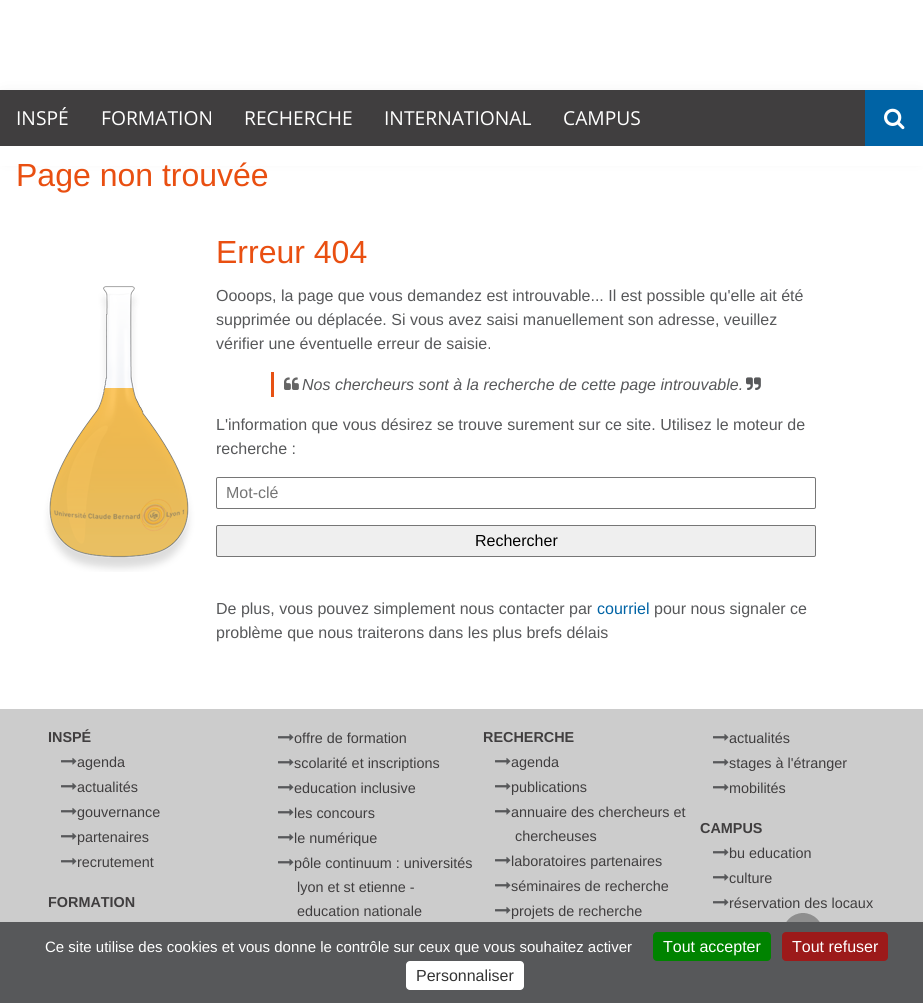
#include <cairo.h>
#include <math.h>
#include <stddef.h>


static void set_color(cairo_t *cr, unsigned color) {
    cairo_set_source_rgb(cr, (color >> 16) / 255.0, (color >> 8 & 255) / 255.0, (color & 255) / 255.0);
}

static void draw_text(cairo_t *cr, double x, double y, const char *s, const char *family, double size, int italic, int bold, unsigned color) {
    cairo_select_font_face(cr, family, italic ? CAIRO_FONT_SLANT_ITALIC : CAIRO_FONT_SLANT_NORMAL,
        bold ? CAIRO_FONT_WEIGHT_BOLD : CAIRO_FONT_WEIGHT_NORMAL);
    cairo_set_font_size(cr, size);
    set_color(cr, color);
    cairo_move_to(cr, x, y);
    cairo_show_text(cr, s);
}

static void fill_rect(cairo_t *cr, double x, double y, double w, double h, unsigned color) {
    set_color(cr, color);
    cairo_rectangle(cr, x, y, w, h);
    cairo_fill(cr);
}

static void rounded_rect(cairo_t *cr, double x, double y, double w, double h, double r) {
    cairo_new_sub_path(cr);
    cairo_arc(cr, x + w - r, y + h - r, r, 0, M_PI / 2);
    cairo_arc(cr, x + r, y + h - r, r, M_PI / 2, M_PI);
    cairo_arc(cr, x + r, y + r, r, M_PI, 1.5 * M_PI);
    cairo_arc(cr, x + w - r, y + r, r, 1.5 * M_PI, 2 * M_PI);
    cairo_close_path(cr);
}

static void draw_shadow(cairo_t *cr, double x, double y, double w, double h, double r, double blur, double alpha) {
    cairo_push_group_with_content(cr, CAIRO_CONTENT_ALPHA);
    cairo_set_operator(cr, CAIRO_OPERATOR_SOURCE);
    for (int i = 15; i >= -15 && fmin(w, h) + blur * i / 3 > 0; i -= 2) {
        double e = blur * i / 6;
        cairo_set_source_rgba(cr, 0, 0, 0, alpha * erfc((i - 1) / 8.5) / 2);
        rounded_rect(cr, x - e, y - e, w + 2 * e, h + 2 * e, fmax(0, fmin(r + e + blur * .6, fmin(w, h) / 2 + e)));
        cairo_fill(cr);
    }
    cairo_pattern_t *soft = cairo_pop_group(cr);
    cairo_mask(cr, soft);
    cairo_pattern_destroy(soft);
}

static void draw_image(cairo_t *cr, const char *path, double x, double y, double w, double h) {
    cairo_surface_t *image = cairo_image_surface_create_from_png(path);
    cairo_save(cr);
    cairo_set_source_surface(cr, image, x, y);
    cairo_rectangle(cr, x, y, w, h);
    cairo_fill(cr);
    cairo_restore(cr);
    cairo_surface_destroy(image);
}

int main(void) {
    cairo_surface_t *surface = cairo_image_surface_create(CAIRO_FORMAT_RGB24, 923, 1003);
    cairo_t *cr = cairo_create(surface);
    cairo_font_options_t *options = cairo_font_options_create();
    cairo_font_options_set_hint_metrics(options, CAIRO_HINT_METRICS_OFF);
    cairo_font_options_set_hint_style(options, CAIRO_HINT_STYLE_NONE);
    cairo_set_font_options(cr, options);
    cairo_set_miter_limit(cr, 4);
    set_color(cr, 0xFFFFFF);
    cairo_paint(cr);
    set_color(cr, 0xC7C7C7);
    draw_shadow(cr, 4, 102, 915, 48, 0, 9.5, 1);
    fill_rect(cr, 0, 90, 865, 56, 0x403E3F);
    draw_text(cr, 16, 125, "INSPÉ", "Open Sans", 19.25, 0, 0, 0xFFFFFF);
    draw_text(cr, 101, 125, "FORMATION", "Open Sans", 19.25, 0, 0, 0xFFFFFF);
    draw_text(cr, 244, 125, "RECHERCHE", "Open Sans", 19.25, 0, 0, 0xFFFFFF);
    draw_text(cr, 384, 125, "INTERNATIONAL", "Open Sans", 19.25, 0, 0, 0xFFFFFF);
    draw_text(cr, 563, 125, "CAMPUS", "Open Sans", 19.25, 0, 0, 0xFFFFFF);
    fill_rect(cr, 865, 90, 58, 56, 0x0063A5);
    draw_image(cr, "assets/img1.png", 884, 108, 21, 22);
    fill_rect(cr, 0, 146, 923, 20, 0xFFFFFF);
    draw_text(cr, 16, 186, "Page non trouvée", "Liberation Sans", 32, 0, 0, 0xE94F11);
    fill_rect(cr, 50, 388, 138, 169, 0xFDAF17);
    draw_image(cr, "assets/img2.png", 16, 286, 200, 286);
    draw_text(cr, 216, 263, "Erreur 404", "Liberation Sans", 32, 0, 0, 0xE94F11);
    draw_text(cr, 216, 301, "Oooops, la page que vous demandez est introuvable... Il est possible qu'elle ait été", "Liberation Sans", 16, 0, 0, 0x57585A);
    draw_text(cr, 216, 325, "supprimée ou déplacée. Si vous avez saisi manuellement son adresse, veuillez", "Liberation Sans", 16, 0, 0, 0x57585A);
    draw_text(cr, 216, 349, "vérifier une éventuelle erreur de saisie.", "Liberation Sans", 16, 0, 0, 0x57585A);
    fill_rect(cr, 271, 372, 3, 25, 0xE75113);
    draw_image(cr, "assets/img3.png", 284, 377, 15, 13);
    draw_text(cr, 302, 390, "Nos chercheurs sont à la recherche de cette page introuvable.", "Liberation Sans", 16, 1, 0, 0x57585A);
    draw_image(cr, "assets/img4.png", 746, 377, 15, 13);
    draw_text(cr, 216, 430, "L'information que vous désirez se trouve surement sur ce site. Utilisez le moteur de", "Liberation Sans", 16, 0, 0, 0x57585A);
    draw_text(cr, 216, 454, "recherche :", "Liberation Sans", 16, 0, 0, 0x57585A);
    rounded_rect(cr, 216.5, 477.5, 599, 31, 1.5);
    set_color(cr, 0x767676);
    cairo_set_line_width(cr, 1);
    cairo_stroke(cr);
    draw_text(cr, 226, 498, "Mot-clé", "Liberation Sans", 16, 0, 0, 0x757575);
    set_color(cr, 0xEFEFEF);
    rounded_rect(cr, 216.5, 525.5, 599, 31, 1.5);
    cairo_fill_preserve(cr);
    set_color(cr, 0x767676);
    cairo_stroke(cr);
    draw_text(cr, 475, 546, "Rechercher", "Liberation Sans", 16, 0, 0, 0x000000);
    draw_text(cr, 216, 614, "De plus, vous pouvez simplement nous contacter par", "Liberation Sans", 16, 0, 0, 0x57585A);
    draw_text(cr, 597, 614, "courriel", "Liberation Sans", 16, 0, 0, 0x0063A5);
    draw_text(cr, 654, 614, "pour nous signaler ce", "Liberation Sans", 16, 0, 0, 0x57585A);
    draw_text(cr, 216, 638, "problème que nous traiterons dans les plus brefs délais", "Liberation Sans", 16, 0, 0, 0x57585A);
    fill_rect(cr, 0, 709, 923, 213, 0xCCCCCC);
    draw_text(cr, 48, 742, "INSPÉ", "Liberation Sans", 14.4, 0, 1, 0x403E3F);
    draw_image(cr, "assets/img5.png", 61, 757, 16, 8);
    draw_text(cr, 77, 767, "agenda", "Liberation Sans", 14.4, 0, 0, 0x403E3F);
    draw_image(cr, "assets/img5.png", 61, 782, 16, 8);
    draw_text(cr, 77, 792, "actualités", "Liberation Sans", 14.4, 0, 0, 0x403E3F);
    draw_image(cr, "assets/img5.png", 61, 807, 16, 8);
    draw_text(cr, 77, 817, "gouvernance", "Liberation Sans", 14.4, 0, 0, 0x403E3F);
    draw_image(cr, "assets/img5.png", 61, 832, 16, 8);
    draw_text(cr, 77, 842, "partenaires", "Liberation Sans", 14.4, 0, 0, 0x403E3F);
    draw_image(cr, "assets/img5.png", 61, 857, 16, 8);
    draw_text(cr, 77, 867, "recrutement", "Liberation Sans", 14.4, 0, 0, 0x403E3F);
    draw_text(cr, 483, 742, "RECHERCHE", "Liberation Sans", 14.4, 0, 1, 0x403E3F);
    draw_image(cr, "assets/img5.png", 495, 757, 16, 8);
    draw_text(cr, 511, 767, "agenda", "Liberation Sans", 14.4, 0, 0, 0x403E3F);
    draw_image(cr, "assets/img5.png", 495, 782, 16, 8);
    draw_text(cr, 511, 792, "publications", "Liberation Sans", 14.4, 0, 0, 0x403E3F);
    draw_image(cr, "assets/img5.png", 495, 807, 16, 8);
    draw_text(cr, 511, 817, "annuaire des chercheurs et", "Liberation Sans", 14.4, 0, 0, 0x403E3F);
    draw_text(cr, 515, 841, "chercheuses", "Liberation Sans", 14.4, 0, 0, 0x403E3F);
    draw_image(cr, "assets/img5.png", 495, 856, 16, 8);
    draw_text(cr, 511, 866, "laboratoires partenaires", "Liberation Sans", 14.4, 0, 0, 0x403E3F);
    draw_image(cr, "assets/img5.png", 495, 881, 16, 8);
    draw_text(cr, 511, 891, "séminaires de recherche", "Liberation Sans", 14.4, 0, 0, 0x403E3F);
    draw_image(cr, "assets/img5.png", 495, 906, 16, 8);
    draw_text(cr, 511, 916, "projets de recherche", "Liberation Sans", 14.4, 0, 0, 0x403E3F);
    draw_text(cr, 48, 907, "FORMATION", "Liberation Sans", 14.4, 0, 1, 0x403E3F);
    draw_image(cr, "assets/img5.png", 278, 733, 16, 8);
    draw_text(cr, 294, 743, "offre de formation", "Liberation Sans", 14.4, 0, 0, 0x403E3F);
    draw_image(cr, "assets/img5.png", 278, 758, 16, 8);
    draw_text(cr, 294, 768, "scolarité et inscriptions", "Liberation Sans", 14.4, 0, 0, 0x403E3F);
    draw_image(cr, "assets/img5.png", 278, 783, 16, 8);
    draw_text(cr, 294, 793, "education inclusive", "Liberation Sans", 14.4, 0, 0, 0x403E3F);
    draw_image(cr, "assets/img5.png", 278, 808, 16, 8);
    draw_text(cr, 294, 818, "les concours", "Liberation Sans", 14.4, 0, 0, 0x403E3F);
    draw_image(cr, "assets/img5.png", 278, 833, 16, 8);
    draw_text(cr, 294, 843, "le numérique", "Liberation Sans", 14.4, 0, 0, 0x403E3F);
    draw_image(cr, "assets/img5.png", 278, 858, 16, 8);
    draw_text(cr, 294, 868, "pôle continuum : universités", "Liberation Sans", 14.4, 0, 0, 0x403E3F);
    draw_text(cr, 297, 892, "lyon et st etienne -", "Liberation Sans", 14.4, 0, 0, 0x403E3F);
    draw_text(cr, 297, 916, "education nationale", "Liberation Sans", 14.4, 0, 0, 0x403E3F);
    draw_image(cr, "assets/img5.png", 713, 733, 16, 8);
    draw_text(cr, 729, 743, "actualités", "Liberation Sans", 14.4, 0, 0, 0x403E3F);
    draw_image(cr, "assets/img5.png", 713, 758, 16, 8);
    draw_text(cr, 729, 768, "stages à l'étranger", "Liberation Sans", 14.4, 0, 0, 0x403E3F);
    draw_image(cr, "assets/img5.png", 713, 783, 16, 8);
    draw_text(cr, 729, 793, "mobilités", "Liberation Sans", 14.4, 0, 0, 0x403E3F);
    draw_text(cr, 700, 833, "CAMPUS", "Liberation Sans", 14.4, 0, 1, 0x403E3F);
    draw_image(cr, "assets/img5.png", 713, 848, 16, 8);
    draw_text(cr, 729, 858, "bu education", "Liberation Sans", 14.4, 0, 0, 0x403E3F);
    draw_image(cr, "assets/img5.png", 713, 873, 16, 8);
    draw_text(cr, 729, 883, "culture", "Liberation Sans", 14.4, 0, 0, 0x403E3F);
    draw_image(cr, "assets/img5.png", 713, 898, 16, 8);
    draw_text(cr, 729, 908, "réservation des locaux", "Liberation Sans", 14.4, 0, 0, 0x403E3F);
    draw_image(cr, "assets/img6.png", 786, 913, 34, 9);
    fill_rect(cr, 0, 922, 923, 81, 0x57585A);
    draw_text(cr, 45, 952, "Ce site utilise des cookies et vous donne le contrôle sur ceux que vous souhaitez activer", "Liberation Sans", 15, 0, 0, 0xFFFFFF);
    set_color(cr, 0x008300);
    rounded_rect(cr, 653, 932, 118, 29, 4);
    cairo_fill(cr);
    draw_text(cr, 663, 952, "Tout accepter", "Liberation Sans", 16, 0, 0, 0xFFFFFF);
    set_color(cr, 0x9C1A1A);
    rounded_rect(cr, 782, 932, 106, 29, 4);
    cairo_fill(cr);
    draw_text(cr, 792, 952, "Tout refuser", "Liberation Sans", 16, 0, 0, 0xFFFFFF);
    rounded_rect(cr, 406, 961, 118, 29, 4);
    cairo_fill(cr);
    draw_text(cr, 416, 981, "Personnaliser", "Liberation Sans", 16, 0, 0, 0x333333);
    cairo_surface_write_to_png(surface, "output.png");
    cairo_font_options_destroy(options);
    cairo_destroy(cr);
    cairo_surface_destroy(surface);
    return 0;
}
